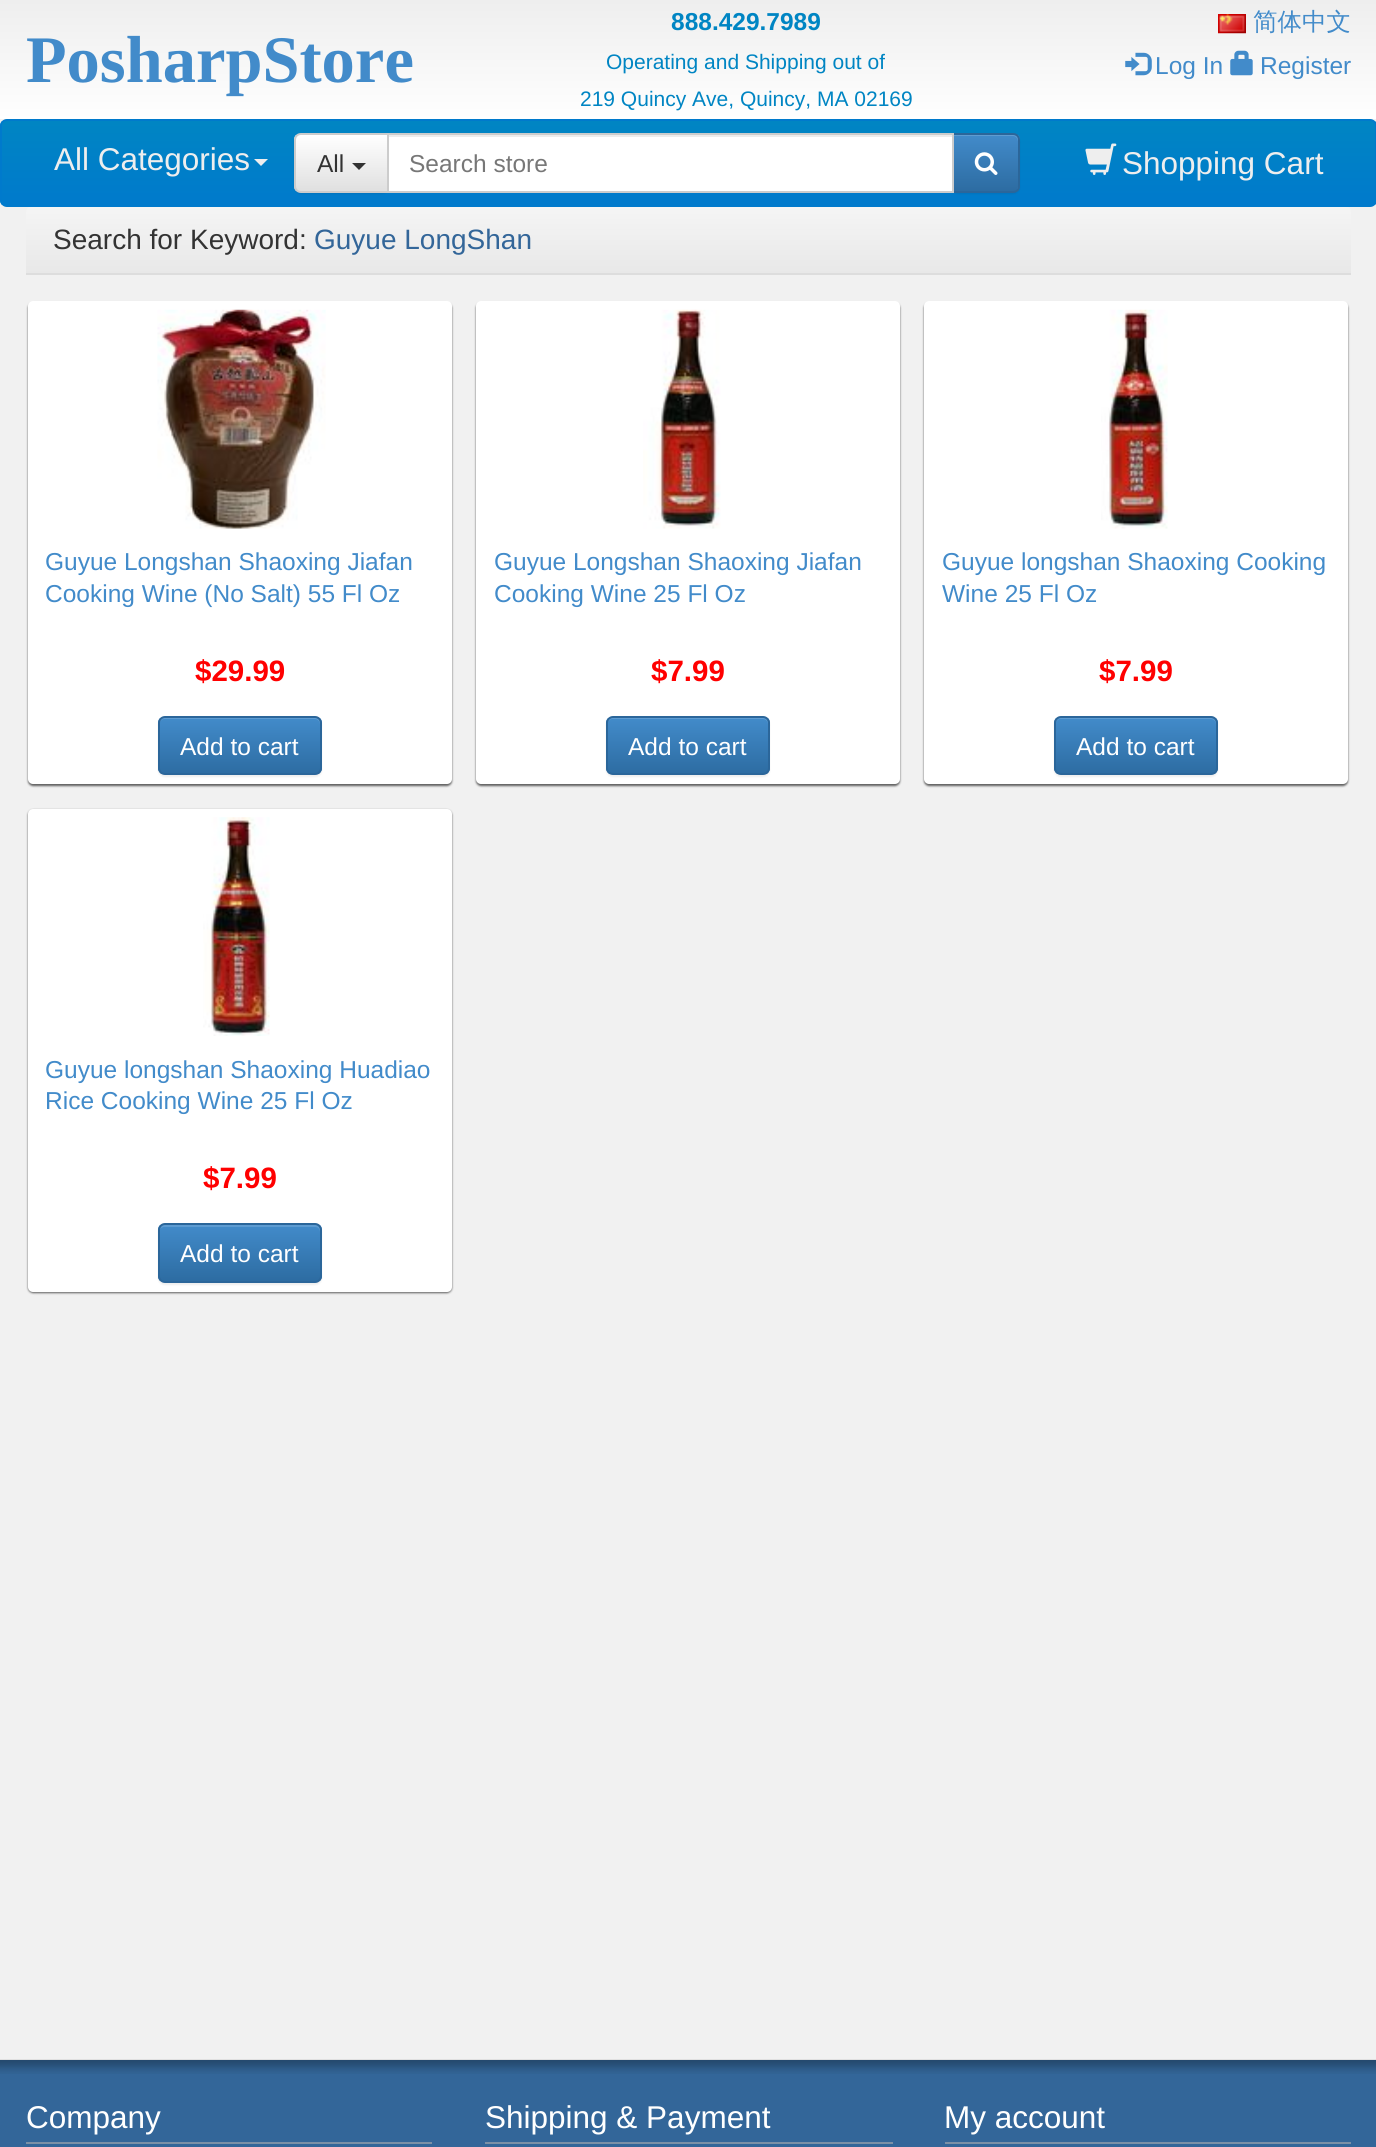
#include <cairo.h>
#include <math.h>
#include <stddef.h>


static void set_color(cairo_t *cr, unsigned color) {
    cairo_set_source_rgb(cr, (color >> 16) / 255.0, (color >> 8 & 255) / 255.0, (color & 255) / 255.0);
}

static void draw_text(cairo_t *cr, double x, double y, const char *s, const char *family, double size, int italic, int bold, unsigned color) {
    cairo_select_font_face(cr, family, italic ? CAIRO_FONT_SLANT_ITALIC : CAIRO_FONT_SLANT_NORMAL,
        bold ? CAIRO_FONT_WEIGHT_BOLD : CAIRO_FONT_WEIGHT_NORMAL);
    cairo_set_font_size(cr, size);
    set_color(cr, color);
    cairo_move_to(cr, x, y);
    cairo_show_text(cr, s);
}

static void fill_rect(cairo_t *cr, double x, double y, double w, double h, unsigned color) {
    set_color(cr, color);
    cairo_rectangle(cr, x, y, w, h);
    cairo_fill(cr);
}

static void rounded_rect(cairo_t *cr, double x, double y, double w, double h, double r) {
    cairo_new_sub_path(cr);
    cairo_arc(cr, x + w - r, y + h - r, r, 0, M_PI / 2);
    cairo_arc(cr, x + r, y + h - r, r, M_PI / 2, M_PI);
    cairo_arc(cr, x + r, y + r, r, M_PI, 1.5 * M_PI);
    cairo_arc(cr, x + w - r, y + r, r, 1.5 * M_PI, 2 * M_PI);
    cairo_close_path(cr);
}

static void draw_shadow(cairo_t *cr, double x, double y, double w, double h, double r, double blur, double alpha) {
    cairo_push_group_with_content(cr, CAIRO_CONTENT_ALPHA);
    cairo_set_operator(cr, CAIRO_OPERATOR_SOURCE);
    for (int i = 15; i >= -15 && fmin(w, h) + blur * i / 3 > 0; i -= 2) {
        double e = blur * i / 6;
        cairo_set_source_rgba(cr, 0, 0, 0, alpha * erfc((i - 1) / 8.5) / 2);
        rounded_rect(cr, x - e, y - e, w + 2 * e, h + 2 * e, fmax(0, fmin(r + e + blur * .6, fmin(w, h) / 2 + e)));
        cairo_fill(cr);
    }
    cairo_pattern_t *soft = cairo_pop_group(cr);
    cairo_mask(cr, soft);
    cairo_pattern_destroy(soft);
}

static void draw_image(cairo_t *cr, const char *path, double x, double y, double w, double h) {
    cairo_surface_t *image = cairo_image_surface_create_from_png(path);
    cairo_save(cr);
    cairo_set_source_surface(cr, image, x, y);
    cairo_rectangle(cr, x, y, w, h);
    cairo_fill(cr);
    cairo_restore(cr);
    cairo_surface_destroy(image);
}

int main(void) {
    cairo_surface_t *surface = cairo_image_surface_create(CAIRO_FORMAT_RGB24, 1376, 2147);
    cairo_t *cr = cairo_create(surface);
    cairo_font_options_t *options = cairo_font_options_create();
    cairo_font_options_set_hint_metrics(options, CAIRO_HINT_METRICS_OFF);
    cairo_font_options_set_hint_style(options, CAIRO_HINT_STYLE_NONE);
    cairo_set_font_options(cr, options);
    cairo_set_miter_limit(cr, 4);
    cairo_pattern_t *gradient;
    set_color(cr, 0xF1F1F1);
    cairo_paint(cr);
    gradient = cairo_pattern_create_linear(689, 0, 689, 119);
    cairo_pattern_add_color_stop_rgba(gradient, 0, 0.933, 0.933, 0.933, 1);
    cairo_pattern_add_color_stop_rgba(gradient, 1, 1, 1, 1, 1);
    cairo_set_source(cr, gradient);
    cairo_pattern_destroy(gradient);
    cairo_rectangle(cr, 0, 0, 1376, 119);
    cairo_fill(cr);
    draw_text(cr, 26, 82, "PosharpStore", "Liberation Serif", 66.5, 0, 1, 0x428BCA);
    draw_text(cr, 671, 30, "888.429.7989", "Liberation Sans", 24.5, 0, 1, 0x0085C3);
    draw_text(cr, 606, 69, "Operating and Shipping out of", "Liberation Sans", 21, 0, 0, 0x0085C3);
    draw_text(cr, 580, 106, "219 Quincy Ave, Quincy, MA 02169", "Liberation Sans", 21, 0, 0, 0x0085C3);
    draw_image(cr, "assets/img1.png", 1218, 14, 28, 20);
    draw_text(cr, 1253, 30, "简体中文", "WenQuanYi Zen Hei Medium", 24.5, 0, 0, 0x428BCA);
    draw_image(cr, "assets/img2.png", 1125, 52, 27, 24);
    draw_text(cr, 1155, 74, "Log In", "Liberation Sans", 24.5, 0, 0, 0x428BCA);
    draw_image(cr, "assets/img3.png", 1230, 50, 23, 26);
    draw_text(cr, 1260, 74, "Register", "Liberation Sans", 24.5, 0, 0, 0x428BCA);
    cairo_save(cr);
    rounded_rect(cr, 0, 119, 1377, 88, 7);
    cairo_clip(cr);
    gradient = cairo_pattern_create_linear(689, 121, 689, 205);
    cairo_pattern_add_color_stop_rgba(gradient, 0, 0, 0.522, 0.765, 1);
    cairo_pattern_add_color_stop_rgba(gradient, 1, 0, 0.478, 0.8, 1);
    cairo_set_source(cr, gradient);
    cairo_pattern_destroy(gradient);
    cairo_rectangle(cr, 0, 121, 1376, 84);
    cairo_fill(cr);
    cairo_restore(cr);
    rounded_rect(cr, 1, 120, 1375, 86, 6);
    set_color(cr, 0x007ACC);
    cairo_stroke(cr);
    draw_text(cr, 54, 170, "All Categories", "Liberation Sans", 31.5, 0, 0, 0xEEEEEE);
    cairo_new_path(cr);
    cairo_move_to(cr, 254, 159);
    cairo_line_to(cr, 268, 159);
    cairo_line_to(cr, 261, 166);
    cairo_close_path(cr);
    cairo_fill(cr);
    set_color(cr, 0x000000);
    draw_shadow(cr, 294, 135, 95, 59, 7, 1, 0.07);
    cairo_save(cr);
    cairo_new_path(cr);
    cairo_move_to(cr, 301, 133);
    cairo_line_to(cr, 389, 133);
    cairo_line_to(cr, 389, 193);
    cairo_line_to(cr, 301, 193);
    cairo_curve_to(cr, 297, 193, 294, 190, 294, 186);
    cairo_line_to(cr, 294, 140);
    cairo_curve_to(cr, 294, 136, 297, 133, 301, 133);
    cairo_close_path(cr);
    cairo_clip(cr);
    gradient = cairo_pattern_create_linear(341, 135, 341, 191);
    cairo_pattern_add_color_stop_rgba(gradient, 0, 1, 1, 1, 1);
    cairo_pattern_add_color_stop_rgba(gradient, 1, 0.878, 0.878, 0.878, 1);
    cairo_set_source(cr, gradient);
    cairo_pattern_destroy(gradient);
    cairo_rectangle(cr, 294, 135, 93, 56);
    cairo_fill(cr);
    cairo_restore(cr);
    cairo_new_path(cr);
    cairo_move_to(cr, 301, 134);
    cairo_line_to(cr, 388, 134);
    cairo_line_to(cr, 388, 192);
    cairo_line_to(cr, 301, 192);
    cairo_curve_to(cr, 297.5, 192, 295, 189.5, 295, 186);
    cairo_line_to(cr, 295, 140);
    cairo_curve_to(cr, 295, 136.5, 297.5, 134, 301, 134);
    cairo_close_path(cr);
    set_color(cr, 0xCCCCCC);
    cairo_stroke(cr);
    draw_text(cr, 317, 172, "All", "Liberation Sans", 24.5, 0, 0, 0x333333);
    cairo_new_path(cr);
    cairo_move_to(cr, 352, 163);
    cairo_line_to(cr, 366, 163);
    cairo_line_to(cr, 359, 170);
    cairo_close_path(cr);
    cairo_fill(cr);
    set_color(cr, 0x000000);
    draw_shadow(cr, 952, 135, 68, 59, 7, 1, 0.07);
    fill_rect(cr, 389, 137, 563, 54, 0xFFFFFF);
    fill_rect(cr, 389, 135, 563, 2, 0xECECEC);
    cairo_save(cr);
    cairo_new_path(cr);
    cairo_move_to(cr, 952, 133);
    cairo_line_to(cr, 1013, 133);
    cairo_curve_to(cr, 1017, 133, 1020, 136, 1020, 140);
    cairo_line_to(cr, 1020, 186);
    cairo_curve_to(cr, 1020, 190, 1017, 193, 1013, 193);
    cairo_line_to(cr, 952, 193);
    cairo_close_path(cr);
    cairo_clip(cr);
    gradient = cairo_pattern_create_linear(986, 135, 986, 191);
    cairo_pattern_add_color_stop_rgba(gradient, 0, 0.259, 0.545, 0.792, 1);
    cairo_pattern_add_color_stop_rgba(gradient, 1, 0.176, 0.424, 0.635, 1);
    cairo_set_source(cr, gradient);
    cairo_pattern_destroy(gradient);
    cairo_rectangle(cr, 954, 135, 66, 56);
    cairo_fill(cr);
    cairo_restore(cr);
    cairo_set_source_rgba(cr, 1, 1, 1, 0.15);
    cairo_new_path(cr);
    cairo_move_to(cr, 954, 136);
    cairo_line_to(cr, 1013, 136);
    cairo_curve_to(cr, 1016, 136, 1018, 139, 1018, 142);
    cairo_line_to(cr, 1018, 187);
    cairo_line_to(cr, 1017, 190);
    cairo_curve_to(cr, 1018, 189, 1019, 187, 1019, 186);
    cairo_line_to(cr, 1019, 140);
    cairo_curve_to(cr, 1019, 137, 1017, 135, 1014, 135);
    cairo_line_to(cr, 954, 135);
    cairo_close_path(cr);
    cairo_fill(cr);
    cairo_new_path(cr);
    cairo_move_to(cr, 953, 134);
    cairo_line_to(cr, 1013, 134);
    cairo_curve_to(cr, 1016.5, 134, 1019, 136.5, 1019, 140);
    cairo_line_to(cr, 1019, 186);
    cairo_curve_to(cr, 1019, 189.5, 1016.5, 192, 1013, 192);
    cairo_line_to(cr, 953, 192);
    cairo_close_path(cr);
    set_color(cr, 0x2B669A);
    cairo_stroke(cr);
    cairo_rectangle(cr, 388, 134, 565, 58);
    set_color(cr, 0xCCCCCC);
    cairo_stroke(cr);
    draw_text(cr, 409, 172, "Search store", "Liberation Sans", 24.5, 0, 0, 0x777777);
    draw_image(cr, "assets/img4.png", 974, 152, 24, 23);
    draw_image(cr, "assets/img5.png", 1085, 143, 32, 32);
    draw_text(cr, 1122, 174, "Shopping Cart", "Liberation Sans", 31.5, 0, 0, 0xEEEEEE);
    gradient = cairo_pattern_create_linear(689, 206, 689, 273);
    cairo_pattern_add_color_stop_rgba(gradient, 0, 0.961, 0.961, 0.961, 1);
    cairo_pattern_add_color_stop_rgba(gradient, 1, 0.91, 0.91, 0.91, 1);
    cairo_set_source(cr, gradient);
    cairo_pattern_destroy(gradient);
    cairo_new_path(cr);
    cairo_move_to(cr, 31, 207);
    cairo_line_to(cr, 1346, 207);
    cairo_curve_to(cr, 1349, 207, 1351, 209, 1351, 212);
    cairo_line_to(cr, 1351, 273);
    cairo_line_to(cr, 26, 273);
    cairo_line_to(cr, 26, 212);
    cairo_curve_to(cr, 26, 209, 28, 207, 31, 207);
    cairo_close_path(cr);
    cairo_fill(cr);
    fill_rect(cr, 26, 273, 1325, 2, 0xDDDDDD);
    draw_text(cr, 53, 249, "Search for Keyword:", "Liberation Sans", 28, 0, 0, 0x333333);
    draw_text(cr, 314, 249, "Guyue LongShan", "Liberation Sans", 28, 0, 0, 0x336699);
    set_color(cr, 0x000000);
    draw_shadow(cr, 28, 303, 424, 483, 5, 1, 0.6);
    set_color(cr, 0xFFFFFF);
    rounded_rect(cr, 28, 301, 424, 483, 5);
    cairo_fill(cr);
    draw_image(cr, "assets/img6.png", 157, 309, 169, 220);
    draw_text(cr, 45, 570, "Guyue Longshan Shaoxing Jiafan", "Liberation Sans", 24.5, 0, 0, 0x428BCA);
    draw_text(cr, 45, 602, "Cooking Wine (No Salt) 55 Fl Oz", "Liberation Sans", 24.5, 0, 0, 0x428BCA);
    draw_text(cr, 195, 681, "$29.99", "Liberation Sans", 29.5, 0, 1, 0xFF0000);
    set_color(cr, 0x000000);
    draw_shadow(cr, 158, 718, 164, 59, 7, 1, 0.07);
    cairo_save(cr);
    rounded_rect(cr, 158, 716, 164, 59, 7);
    cairo_clip(cr);
    gradient = cairo_pattern_create_linear(240, 718, 240, 774);
    cairo_pattern_add_color_stop_rgba(gradient, 0, 0.259, 0.545, 0.792, 1);
    cairo_pattern_add_color_stop_rgba(gradient, 1, 0.176, 0.424, 0.635, 1);
    cairo_set_source(cr, gradient);
    cairo_pattern_destroy(gradient);
    cairo_rectangle(cr, 158, 718, 164, 56);
    cairo_fill(cr);
    cairo_restore(cr);
    set_color(cr, 0x5E9CD2);
    cairo_new_path(cr);
    cairo_move_to(cr, 164, 719);
    cairo_line_to(cr, 315, 719);
    cairo_curve_to(cr, 318, 719, 320, 722, 320, 724);
    cairo_line_to(cr, 320, 723);
    cairo_curve_to(cr, 320, 720, 318, 718, 315, 718);
    cairo_line_to(cr, 164, 718);
    cairo_curve_to(cr, 161, 718, 159, 720, 159, 723);
    cairo_line_to(cr, 159, 724);
    cairo_curve_to(cr, 159, 722, 162, 719, 164, 719);
    cairo_close_path(cr);
    cairo_fill(cr);
    rounded_rect(cr, 159, 717, 162, 57, 6);
    set_color(cr, 0x2B669A);
    cairo_stroke(cr);
    draw_text(cr, 180, 755, "Add to cart", "Liberation Sans", 24.5, 0, 0, 0xFFFFFF);
    set_color(cr, 0x000000);
    draw_shadow(cr, 476, 303, 424, 483, 5, 1, 0.6);
    set_color(cr, 0xFFFFFF);
    rounded_rect(cr, 476, 301, 424, 483, 5);
    cairo_fill(cr);
    draw_image(cr, "assets/img7.png", 643, 309, 78, 220);
    draw_text(cr, 494, 570, "Guyue Longshan Shaoxing Jiafan", "Liberation Sans", 24.5, 0, 0, 0x428BCA);
    draw_text(cr, 494, 602, "Cooking Wine 25 Fl Oz", "Liberation Sans", 24.5, 0, 0, 0x428BCA);
    draw_text(cr, 651, 681, "$7.99", "Liberation Sans", 29.5, 0, 1, 0xFF0000);
    set_color(cr, 0x000000);
    draw_shadow(cr, 606, 718, 164, 59, 7, 1, 0.07);
    cairo_save(cr);
    rounded_rect(cr, 606, 716, 164, 59, 7);
    cairo_clip(cr);
    gradient = cairo_pattern_create_linear(688, 718, 688, 774);
    cairo_pattern_add_color_stop_rgba(gradient, 0, 0.259, 0.545, 0.792, 1);
    cairo_pattern_add_color_stop_rgba(gradient, 1, 0.176, 0.424, 0.635, 1);
    cairo_set_source(cr, gradient);
    cairo_pattern_destroy(gradient);
    cairo_rectangle(cr, 606, 718, 164, 56);
    cairo_fill(cr);
    cairo_restore(cr);
    set_color(cr, 0x5E9CD2);
    cairo_new_path(cr);
    cairo_move_to(cr, 612, 719);
    cairo_line_to(cr, 763, 719);
    cairo_curve_to(cr, 766, 719, 768, 722, 768, 724);
    cairo_line_to(cr, 768, 723);
    cairo_curve_to(cr, 768, 720, 766, 718, 763, 718);
    cairo_line_to(cr, 612, 718);
    cairo_curve_to(cr, 609, 718, 607, 720, 607, 723);
    cairo_line_to(cr, 607, 724);
    cairo_curve_to(cr, 607, 722, 610, 719, 612, 719);
    cairo_close_path(cr);
    cairo_fill(cr);
    rounded_rect(cr, 607, 717, 162, 57, 6);
    set_color(cr, 0x2B669A);
    cairo_stroke(cr);
    draw_text(cr, 628, 755, "Add to cart", "Liberation Sans", 24.5, 0, 0, 0xFFFFFF);
    set_color(cr, 0x000000);
    draw_shadow(cr, 924, 303, 424, 483, 5, 1, 0.6);
    set_color(cr, 0xFFFFFF);
    rounded_rect(cr, 924, 301, 424, 483, 5);
    cairo_fill(cr);
    draw_image(cr, "assets/img8.png", 1101, 309, 67, 220);
    draw_text(cr, 942, 570, "Guyue longshan Shaoxing Cooking", "Liberation Sans", 24.5, 0, 0, 0x428BCA);
    draw_text(cr, 942, 602, "Wine 25 Fl Oz", "Liberation Sans", 24.5, 0, 0, 0x428BCA);
    draw_text(cr, 1099, 681, "$7.99", "Liberation Sans", 29.5, 0, 1, 0xFF0000);
    set_color(cr, 0x000000);
    draw_shadow(cr, 1054, 718, 164, 59, 7, 1, 0.07);
    cairo_save(cr);
    rounded_rect(cr, 1054, 716, 164, 59, 7);
    cairo_clip(cr);
    gradient = cairo_pattern_create_linear(1136, 718, 1136, 774);
    cairo_pattern_add_color_stop_rgba(gradient, 0, 0.259, 0.545, 0.792, 1);
    cairo_pattern_add_color_stop_rgba(gradient, 1, 0.176, 0.424, 0.635, 1);
    cairo_set_source(cr, gradient);
    cairo_pattern_destroy(gradient);
    cairo_rectangle(cr, 1054, 718, 164, 56);
    cairo_fill(cr);
    cairo_restore(cr);
    set_color(cr, 0x5E9CD2);
    cairo_new_path(cr);
    cairo_move_to(cr, 1060, 719);
    cairo_line_to(cr, 1211, 719);
    cairo_curve_to(cr, 1214, 719, 1216, 722, 1216, 724);
    cairo_line_to(cr, 1216, 723);
    cairo_curve_to(cr, 1216, 720, 1214, 718, 1211, 718);
    cairo_line_to(cr, 1060, 718);
    cairo_curve_to(cr, 1057, 718, 1055, 720, 1055, 723);
    cairo_line_to(cr, 1055, 724);
    cairo_curve_to(cr, 1055, 722, 1058, 719, 1060, 719);
    cairo_close_path(cr);
    cairo_fill(cr);
    rounded_rect(cr, 1055, 717, 162, 57, 6);
    set_color(cr, 0x2B669A);
    cairo_stroke(cr);
    draw_text(cr, 1076, 755, "Add to cart", "Liberation Sans", 24.5, 0, 0, 0xFFFFFF);
    set_color(cr, 0x000000);
    draw_shadow(cr, 28, 810, 424, 483, 5, 1, 0.6);
    set_color(cr, 0xFFFFFF);
    rounded_rect(cr, 28, 809, 424, 483, 5);
    cairo_fill(cr);
    draw_image(cr, "assets/img9.png", 203, 817, 67, 219);
    draw_text(cr, 45, 1078, "Guyue longshan Shaoxing Huadiao", "Liberation Sans", 24.5, 0, 0, 0x428BCA);
    draw_text(cr, 45, 1109, "Rice Cooking Wine 25 Fl Oz", "Liberation Sans", 24.5, 0, 0, 0x428BCA);
    draw_text(cr, 203, 1188, "$7.99", "Liberation Sans", 29.5, 0, 1, 0xFF0000);
    set_color(cr, 0x000000);
    draw_shadow(cr, 158, 1225, 164, 60, 7, 1, 0.07);
    cairo_save(cr);
    rounded_rect(cr, 158, 1223, 164, 60, 7);
    cairo_clip(cr);
    gradient = cairo_pattern_create_linear(240, 1225, 240, 1281);
    cairo_pattern_add_color_stop_rgba(gradient, 0, 0.259, 0.545, 0.792, 1);
    cairo_pattern_add_color_stop_rgba(gradient, 1, 0.176, 0.424, 0.635, 1);
    cairo_set_source(cr, gradient);
    cairo_pattern_destroy(gradient);
    cairo_rectangle(cr, 158, 1225, 164, 56);
    cairo_fill(cr);
    cairo_restore(cr);
    cairo_set_source_rgba(cr, 1, 1, 1, 0.15);
    cairo_new_path(cr);
    cairo_move_to(cr, 164, 1227);
    cairo_line_to(cr, 315, 1227);
    cairo_curve_to(cr, 318, 1227, 320, 1229, 320, 1232);
    cairo_line_to(cr, 320, 1230);
    cairo_curve_to(cr, 320, 1227, 318, 1225, 315, 1225);
    cairo_line_to(cr, 164, 1225);
    cairo_curve_to(cr, 161, 1225, 159, 1227, 159, 1230);
    cairo_line_to(cr, 159, 1232);
    cairo_curve_to(cr, 159, 1229, 162, 1227, 164, 1227);
    cairo_close_path(cr);
    cairo_fill(cr);
    rounded_rect(cr, 159, 1224, 162, 58, 6);
    set_color(cr, 0x2B669A);
    cairo_stroke(cr);
    draw_text(cr, 180, 1262, "Add to cart", "Liberation Sans", 24.5, 0, 0, 0xFFFFFF);
    fill_rect(cr, 0, 2060, 1376, 87, 0x336699);
    draw_image(cr, "assets/img10.png", 0, 2059, 1376, 15);
    fill_rect(cr, 26, 2142, 406, 2, 0x7B90A6);
    draw_text(cr, 26, 2128, "Company", "Liberation Sans", 31.5, 0, 0, 0xFFFFFF);
    fill_rect(cr, 485, 2142, 408, 2, 0x7B90A6);
    draw_text(cr, 485, 2128, "Shipping & Payment", "Liberation Sans", 31.5, 0, 0, 0xFFFFFF);
    fill_rect(cr, 945, 2142, 406, 2, 0x7B90A6);
    draw_text(cr, 944, 2128, "My account", "Liberation Sans", 31.5, 0, 0, 0xFFFFFF);
    cairo_surface_write_to_png(surface, "output.png");
    cairo_font_options_destroy(options);
    cairo_destroy(cr);
    cairo_surface_destroy(surface);
    return 0;
}
